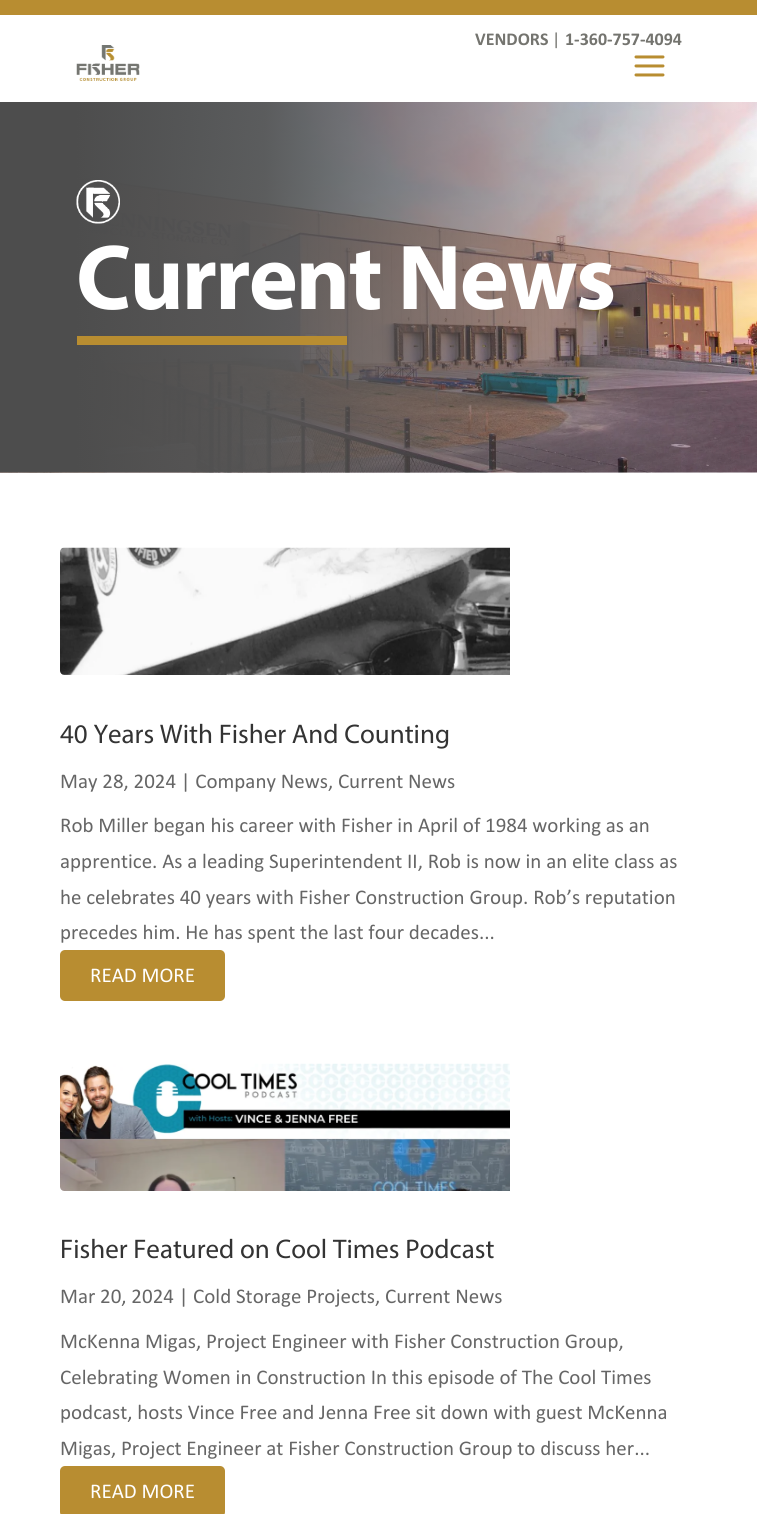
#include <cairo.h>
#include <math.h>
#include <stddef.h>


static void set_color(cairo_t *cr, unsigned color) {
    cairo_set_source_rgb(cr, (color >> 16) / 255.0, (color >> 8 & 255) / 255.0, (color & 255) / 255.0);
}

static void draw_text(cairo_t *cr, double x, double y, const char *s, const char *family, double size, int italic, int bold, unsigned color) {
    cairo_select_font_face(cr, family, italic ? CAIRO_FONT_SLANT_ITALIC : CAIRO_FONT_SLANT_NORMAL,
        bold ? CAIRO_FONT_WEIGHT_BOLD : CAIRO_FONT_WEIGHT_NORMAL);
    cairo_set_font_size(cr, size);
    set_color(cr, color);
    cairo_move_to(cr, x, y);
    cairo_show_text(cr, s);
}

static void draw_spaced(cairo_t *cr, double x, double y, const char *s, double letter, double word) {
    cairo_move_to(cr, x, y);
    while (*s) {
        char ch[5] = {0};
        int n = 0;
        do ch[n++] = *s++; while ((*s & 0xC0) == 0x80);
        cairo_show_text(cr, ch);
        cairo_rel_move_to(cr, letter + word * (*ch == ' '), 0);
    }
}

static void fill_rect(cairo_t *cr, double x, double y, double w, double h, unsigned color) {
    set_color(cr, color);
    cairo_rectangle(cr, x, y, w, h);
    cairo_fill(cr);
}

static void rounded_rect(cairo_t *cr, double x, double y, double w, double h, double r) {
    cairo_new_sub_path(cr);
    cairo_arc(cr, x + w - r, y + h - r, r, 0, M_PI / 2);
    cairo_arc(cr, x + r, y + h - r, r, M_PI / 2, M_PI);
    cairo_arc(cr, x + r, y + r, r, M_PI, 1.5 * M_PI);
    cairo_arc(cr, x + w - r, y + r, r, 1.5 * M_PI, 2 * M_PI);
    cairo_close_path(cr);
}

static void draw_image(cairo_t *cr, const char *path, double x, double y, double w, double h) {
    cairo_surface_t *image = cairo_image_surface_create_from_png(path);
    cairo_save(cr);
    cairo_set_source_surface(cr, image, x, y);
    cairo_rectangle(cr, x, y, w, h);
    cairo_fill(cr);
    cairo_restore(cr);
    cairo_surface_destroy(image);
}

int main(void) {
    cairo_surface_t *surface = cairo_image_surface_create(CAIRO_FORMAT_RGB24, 757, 1514);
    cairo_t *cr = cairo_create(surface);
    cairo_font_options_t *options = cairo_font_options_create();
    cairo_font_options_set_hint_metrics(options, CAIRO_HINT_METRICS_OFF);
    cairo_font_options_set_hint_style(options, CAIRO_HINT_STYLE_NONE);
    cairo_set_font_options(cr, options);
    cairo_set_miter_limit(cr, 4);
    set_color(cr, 0xFFFFFF);
    cairo_paint(cr);
    fill_rect(cr, 0, 0, 757, 15, 0xB88D31);
    draw_text(cr, 475, 45, "VENDORS", "Calibri", 18, 0, 1, 0x74746F);
    draw_text(cr, 552, 45, "|", "Calibri", 18, 0, 0, 0x74746F);
    draw_text(cr, 565, 45, "1-360-757-4094", "Calibri", 18, 0, 1, 0x74746F);
    draw_image(cr, "assets/img1.png", 76, 45, 64, 36);
    draw_image(cr, "assets/img2.png", 634, 55, 31, 22);
    draw_image(cr, "assets/img3.png", 0, 102, 757, 371);
    draw_image(cr, "assets/img4.png", 76, 180, 44, 44);
    cairo_select_font_face(cr, "Myriad", CAIRO_FONT_SLANT_NORMAL, CAIRO_FONT_WEIGHT_BOLD);
    cairo_set_font_size(cr, 93);
    set_color(cr, 0xFFFFFF);
    draw_spaced(cr, 76, 309, "Current News", -1.9, 0);
    fill_rect(cr, 77, 336, 270, 9, 0xB88D31);
    draw_image(cr, "assets/img5.png", 60, 547, 450, 128);
    draw_text(cr, 60, 743, "40 Years With Fisher And Counting", "Myriad", 27, 0, 0, 0x333333);
    draw_text(cr, 60, 788, "May 28, 2024 | Company News, Current News", "Calibri", 21, 0, 0, 0x666666);
    draw_text(cr, 60, 832, "Rob Miller began his career with Fisher in April of 1984 working as an", "Calibri", 21, 0, 0, 0x666666);
    draw_text(cr, 60, 868, "apprentice. As a leading Superintendent II, Rob is now in an elite class as", "Calibri", 21, 0, 0, 0x666666);
    draw_text(cr, 60, 904, "he celebrates 40 years with Fisher Construction Group. Rob’s reputation", "Calibri", 21, 0, 0, 0x666666);
    draw_text(cr, 60, 939, "precedes him. He has spent the last four decades...", "Calibri", 21, 0, 0, 0x666666);
    set_color(cr, 0xB88D31);
    rounded_rect(cr, 60, 950, 165, 51, 5);
    cairo_fill(cr);
    draw_text(cr, 90, 982, "READ MORE", "Calibri", 21, 0, 0, 0xFFFFFF);
    draw_image(cr, "assets/img6.png", 60, 1063, 450, 128);
    draw_text(cr, 60, 1258, "Fisher Featured on Cool Times Podcast", "Myriad", 27, 0, 0, 0x333333);
    draw_text(cr, 60, 1303, "Mar 20, 2024 | Cold Storage Projects, Current News", "Calibri", 21, 0, 0, 0x666666);
    draw_text(cr, 60, 1348, "McKenna Migas, Project Engineer with Fisher Construction Group,", "Calibri", 21, 0, 0, 0x666666);
    draw_text(cr, 60, 1384, "Celebrating Women in Construction In this episode of The Cool Times", "Calibri", 21, 0, 0, 0x666666);
    draw_text(cr, 60, 1419, "podcast, hosts Vince Free and Jenna Free sit down with guest McKenna", "Calibri", 21, 0, 0, 0x666666);
    draw_text(cr, 60, 1455, "Migas, Project Engineer at Fisher Construction Group to discuss her...", "Calibri", 21, 0, 0, 0x666666);
    set_color(cr, 0xB88D31);
    rounded_rect(cr, 60, 1466, 165, 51, 5);
    cairo_fill(cr);
    draw_text(cr, 90, 1498, "READ MORE", "Calibri", 21, 0, 0, 0xFFFFFF);
    cairo_surface_write_to_png(surface, "output.png");
    cairo_font_options_destroy(options);
    cairo_destroy(cr);
    cairo_surface_destroy(surface);
    return 0;
}
